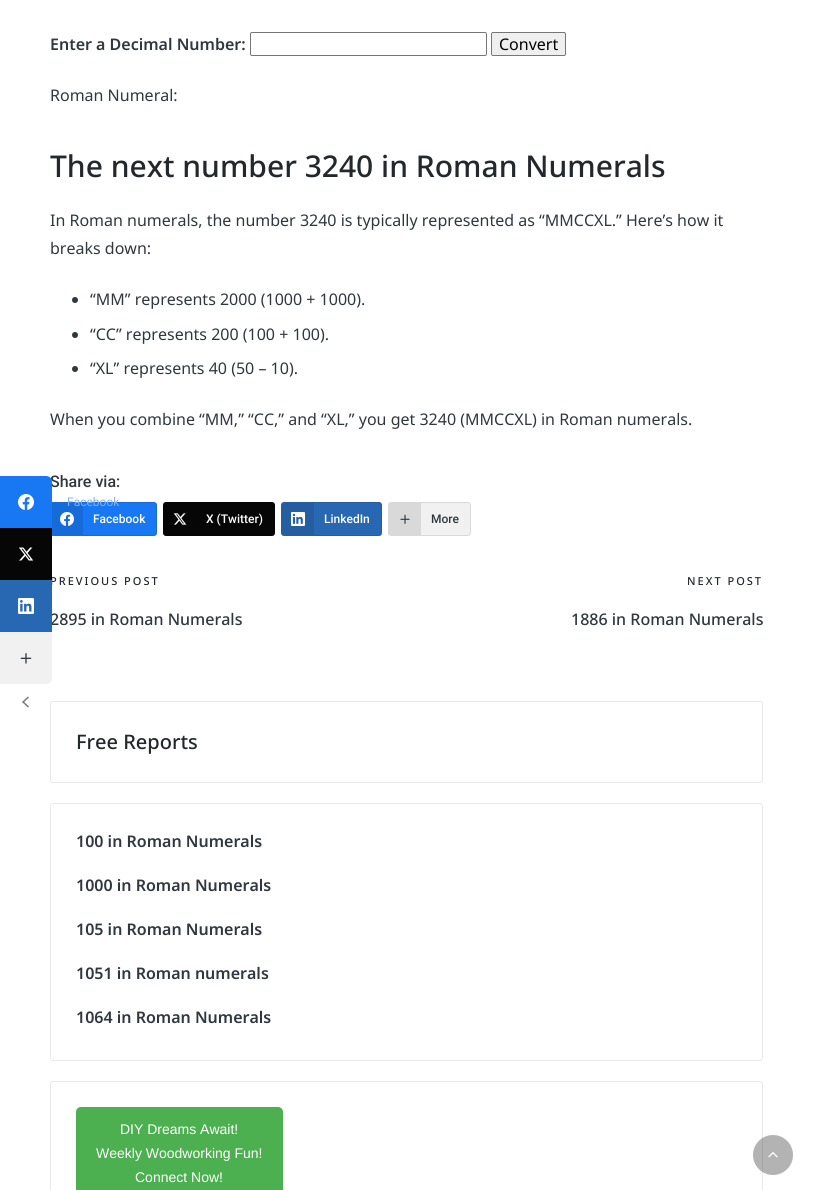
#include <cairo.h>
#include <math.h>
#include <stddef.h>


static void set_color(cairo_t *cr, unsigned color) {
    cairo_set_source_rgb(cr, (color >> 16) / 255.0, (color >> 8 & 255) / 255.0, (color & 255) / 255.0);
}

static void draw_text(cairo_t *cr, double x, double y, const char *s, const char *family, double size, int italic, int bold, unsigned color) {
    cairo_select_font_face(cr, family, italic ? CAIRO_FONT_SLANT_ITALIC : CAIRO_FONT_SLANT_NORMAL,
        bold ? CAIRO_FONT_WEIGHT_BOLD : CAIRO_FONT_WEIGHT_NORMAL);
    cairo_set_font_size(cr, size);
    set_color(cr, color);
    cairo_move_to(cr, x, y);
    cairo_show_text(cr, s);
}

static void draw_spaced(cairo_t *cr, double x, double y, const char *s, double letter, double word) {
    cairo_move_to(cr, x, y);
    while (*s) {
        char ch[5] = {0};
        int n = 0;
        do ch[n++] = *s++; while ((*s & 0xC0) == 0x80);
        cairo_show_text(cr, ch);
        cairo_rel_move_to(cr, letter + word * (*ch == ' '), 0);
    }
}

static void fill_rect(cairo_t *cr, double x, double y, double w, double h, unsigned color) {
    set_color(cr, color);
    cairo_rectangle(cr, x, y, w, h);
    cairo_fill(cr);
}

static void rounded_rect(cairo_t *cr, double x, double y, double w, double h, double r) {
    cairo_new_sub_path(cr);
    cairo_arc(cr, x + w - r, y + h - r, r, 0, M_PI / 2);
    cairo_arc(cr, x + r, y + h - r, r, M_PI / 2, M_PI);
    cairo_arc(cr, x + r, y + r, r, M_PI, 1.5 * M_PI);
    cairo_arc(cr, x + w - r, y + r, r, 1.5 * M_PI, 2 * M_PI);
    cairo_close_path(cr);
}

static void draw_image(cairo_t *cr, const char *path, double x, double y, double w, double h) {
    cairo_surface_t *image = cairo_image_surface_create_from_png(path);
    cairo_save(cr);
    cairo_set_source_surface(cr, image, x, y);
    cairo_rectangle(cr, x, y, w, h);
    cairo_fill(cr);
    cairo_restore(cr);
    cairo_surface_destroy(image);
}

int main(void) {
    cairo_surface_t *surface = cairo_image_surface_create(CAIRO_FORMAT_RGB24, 813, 1190);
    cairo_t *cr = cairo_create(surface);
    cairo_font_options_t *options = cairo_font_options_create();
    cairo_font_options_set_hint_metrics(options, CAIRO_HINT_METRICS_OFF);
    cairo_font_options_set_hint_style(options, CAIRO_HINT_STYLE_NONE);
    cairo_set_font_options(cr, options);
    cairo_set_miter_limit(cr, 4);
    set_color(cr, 0xFFFFFF);
    cairo_paint(cr);
    draw_text(cr, 50, 50, "Enter a Decimal Number:", "Noto Sans SemiBold", 16, 0, 0, 0x30373E);
    rounded_rect(cr, 250.5, 32.5, 236, 23, 1.5);
    set_color(cr, 0x767676);
    cairo_set_line_width(cr, 1);
    cairo_stroke(cr);
    set_color(cr, 0xEFEFEF);
    rounded_rect(cr, 491.5, 32.5, 74, 23, 1.5);
    cairo_fill_preserve(cr);
    set_color(cr, 0x767676);
    cairo_stroke(cr);
    draw_text(cr, 499, 50, "Convert", "Noto Sans", 16, 0, 0, 0x000000);
    draw_text(cr, 50, 101, "Roman Numeral:", "Noto Sans", 16, 0, 0, 0x30373E);
    draw_text(cr, 50, 177, "The next number 3240 in Roman Numerals", "Noto Sans Medium", 30, 0, 0, 0x23282D);
    draw_text(cr, 50, 226, "In Roman numerals, the number 3240 is typically represented as “MMCCXL.” Here’s how it", "Noto Sans", 16, 0, 0, 0x30373E);
    draw_text(cr, 50, 254, "breaks down:", "Noto Sans", 16, 0, 0, 0x30373E);
    cairo_new_path(cr);
    cairo_arc(cr, 75, 300, 3, 0, 2 * M_PI);
    cairo_fill(cr);
    draw_text(cr, 90, 305, "“MM” represents 2000 (1000 + 1000).", "Noto Sans", 16, 0, 0, 0x30373E);
    cairo_new_path(cr);
    cairo_arc(cr, 75, 335, 3, 0, 2 * M_PI);
    cairo_fill(cr);
    draw_text(cr, 90, 340, "“CC” represents 200 (100 + 100).", "Noto Sans", 16, 0, 0, 0x30373E);
    cairo_new_path(cr);
    cairo_arc(cr, 75, 369, 3, 0, 2 * M_PI);
    cairo_fill(cr);
    draw_text(cr, 90, 374, "“XL” represents 40 (50 – 10).", "Noto Sans", 16, 0, 0, 0x30373E);
    draw_text(cr, 50, 425, "When you combine “MM,” “CC,” and “XL,” you get 3240 (MMCCXL) in Roman numerals.", "Noto Sans", 16, 0, 0, 0x30373E);
    draw_text(cr, 50, 487, "Share via:", "Roboto Medium", 16, 0, 0, 0x30373E);
    set_color(cr, 0x1877F2);
    rounded_rect(cr, 50, 502, 107, 34, 3);
    cairo_fill(cr);
    rounded_rect(cr, 50.5, 502.5, 106, 33, 2.5);
    cairo_set_source_rgba(cr, 0, 0, 0, 0.1);
    cairo_stroke(cr);
    cairo_rectangle(cr, 52, 503, 31, 32);
    cairo_fill(cr);
    draw_image(cr, "assets/img1.png", 60, 512, 14, 14);
    draw_text(cr, 93, 523, "Facebook", "Roboto Medium", 12, 0, 0, 0xFFFFFF);
    set_color(cr, 0x060606);
    rounded_rect(cr, 163, 502, 112, 34, 3);
    cairo_fill(cr);
    rounded_rect(cr, 163.5, 502.5, 111, 33, 2.5);
    cairo_set_source_rgba(cr, 0, 0, 0, 0.1);
    cairo_stroke(cr);
    draw_image(cr, "assets/img2.png", 173, 513, 14, 12);
    draw_text(cr, 206, 523, "X (Twitter)", "Roboto Medium", 12, 0, 0, 0xFFFFFF);
    set_color(cr, 0x2867B2);
    rounded_rect(cr, 281, 502, 101, 34, 3);
    cairo_fill(cr);
    rounded_rect(cr, 281.5, 502.5, 100, 33, 2.5);
    cairo_set_source_rgba(cr, 0, 0, 0, 0.1);
    cairo_stroke(cr);
    set_color(cr, 0x245DA0);
    cairo_new_path(cr);
    cairo_move_to(cr, 284, 503);
    cairo_line_to(cr, 314, 503);
    cairo_line_to(cr, 314, 535);
    cairo_line_to(cr, 284, 535);
    cairo_curve_to(cr, 283, 535, 282, 534, 282, 533);
    cairo_line_to(cr, 282, 505);
    cairo_curve_to(cr, 282, 504, 283, 503, 284, 503);
    cairo_close_path(cr);
    cairo_fill(cr);
    draw_image(cr, "assets/img3.png", 291, 512, 14, 14);
    draw_text(cr, 324, 523, "LinkedIn", "Roboto Medium", 12, 0, 0, 0xFFFFFF);
    set_color(cr, 0xF1F1F1);
    rounded_rect(cr, 388, 502, 83, 34, 3);
    cairo_fill(cr);
    rounded_rect(cr, 388.5, 502.5, 82, 33, 2.5);
    cairo_set_source_rgba(cr, 0, 0, 0, 0.1);
    cairo_stroke(cr);
    cairo_new_path(cr);
    cairo_move_to(cr, 391, 503);
    cairo_line_to(cr, 421, 503);
    cairo_line_to(cr, 421, 535);
    cairo_line_to(cr, 391, 535);
    cairo_curve_to(cr, 390, 535, 389, 534, 389, 533);
    cairo_line_to(cr, 389, 505);
    cairo_curve_to(cr, 389, 504, 390, 503, 391, 503);
    cairo_close_path(cr);
    cairo_fill(cr);
    draw_image(cr, "assets/img4.png", 400, 514, 10, 10);
    draw_text(cr, 431, 523, "More", "Roboto Medium", 12, 0, 0, 0x30373E);
    cairo_select_font_face(cr, "Noto Sans Medium", CAIRO_FONT_SLANT_NORMAL, CAIRO_FONT_WEIGHT_NORMAL);
    cairo_set_font_size(cr, 11);
    set_color(cr, 0x23282D);
    draw_spaced(cr, 50, 585, "PREVIOUS POST", 2, 0);
    draw_text(cr, 50, 625, "2895 in Roman Numerals", "Noto Sans Medium", 16, 0, 0, 0x30373E);
    cairo_set_font_size(cr, 11);
    set_color(cr, 0x23282D);
    draw_spaced(cr, 687, 585, "NEXT POST", 2, 0);
    draw_text(cr, 571, 625, "1886 in Roman Numerals", "Noto Sans Medium", 16, 0, 0, 0x30373E);
    rounded_rect(cr, 50.5, 701.5, 712, 81, 2.5);
    set_color(cr, 0xE9E9E9);
    cairo_stroke(cr);
    draw_text(cr, 76, 749, "Free Reports", "Noto Sans Medium", 20, 0, 0, 0x23282D);
    rounded_rect(cr, 50.5, 803.5, 712, 257, 2.5);
    set_color(cr, 0xE9E9E9);
    cairo_stroke(cr);
    draw_text(cr, 76, 847, "100 in Roman Numerals", "Noto Sans SemiBold", 16, 0, 0, 0x30373E);
    draw_text(cr, 76, 891, "1000 in Roman Numerals", "Noto Sans SemiBold", 16, 0, 0, 0x30373E);
    draw_text(cr, 76, 935, "105 in Roman Numerals", "Noto Sans SemiBold", 16, 0, 0, 0x30373E);
    draw_text(cr, 76, 979, "1051 in Roman numerals", "Noto Sans SemiBold", 16, 0, 0, 0x30373E);
    draw_text(cr, 76, 1023, "1064 in Roman Numerals", "Noto Sans SemiBold", 16, 0, 0, 0x30373E);
    rounded_rect(cr, 50.5, 1081.5, 712, 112, 2.5);
    set_color(cr, 0xE9E9E9);
    cairo_stroke(cr);
    set_color(cr, 0x4CAF50);
    rounded_rect(cr, 76, 1107, 207, 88, 5);
    cairo_fill(cr);
    draw_text(cr, 120, 1134, "DIY Dreams Await!", "Liberation Sans", 14, 0, 0, 0xFFFFFF);
    draw_text(cr, 96, 1158, "Weekly Woodworking Fun!", "Liberation Sans", 14, 0, 0, 0xFFFFFF);
    draw_text(cr, 135, 1182, "Connect Now!", "Liberation Sans", 14, 0, 0, 0xFFFFFF);
    set_color(cr, 0x1877F2);
    cairo_new_path(cr);
    cairo_move_to(cr, 0, 476);
    cairo_line_to(cr, 46, 476);
    cairo_curve_to(cr, 49.5, 476, 52, 478.5, 52, 482);
    cairo_line_to(cr, 52, 528);
    cairo_line_to(cr, 0, 528);
    cairo_close_path(cr);
    cairo_fill(cr);
    draw_image(cr, "assets/img5.png", 18, 494, 16, 16);
    draw_text(cr, 67, 506, "Facebook", "Roboto", 12, 0, 0, 0x80B2F2);
    fill_rect(cr, 0, 528, 52, 52, 0x060606);
    draw_image(cr, "assets/img6.png", 19, 547, 15, 14);
    fill_rect(cr, 0, 580, 52, 52, 0x2867B2);
    draw_image(cr, "assets/img7.png", 18, 598, 16, 16);
    set_color(cr, 0xF1F1F1);
    cairo_new_path(cr);
    cairo_move_to(cr, 0, 632);
    cairo_line_to(cr, 52, 632);
    cairo_line_to(cr, 52, 678);
    cairo_curve_to(cr, 52, 681.5, 49.5, 684, 46, 684);
    cairo_line_to(cr, 0, 684);
    cairo_close_path(cr);
    cairo_fill(cr);
    draw_image(cr, "assets/img8.png", 20, 653, 12, 11);
    cairo_new_path(cr);
    cairo_move_to(cr, 28.5, 697);
    cairo_line_to(cr, 23, 702);
    cairo_line_to(cr, 28.5, 707);
    set_color(cr, 0x7B7B7B);
    cairo_set_line_width(cr, 1.5);
    cairo_stroke(cr);
    cairo_set_source_rgba(cr, 0, 0, 0, 0.3);
    cairo_arc(cr, 773, 1155, 20, 0, 2 * M_PI);
    cairo_fill(cr);
    draw_image(cr, "assets/img9.png", 768, 1152, 10, 6);
    cairo_surface_write_to_png(surface, "output.png");
    cairo_font_options_destroy(options);
    cairo_destroy(cr);
    cairo_surface_destroy(surface);
    return 0;
}
